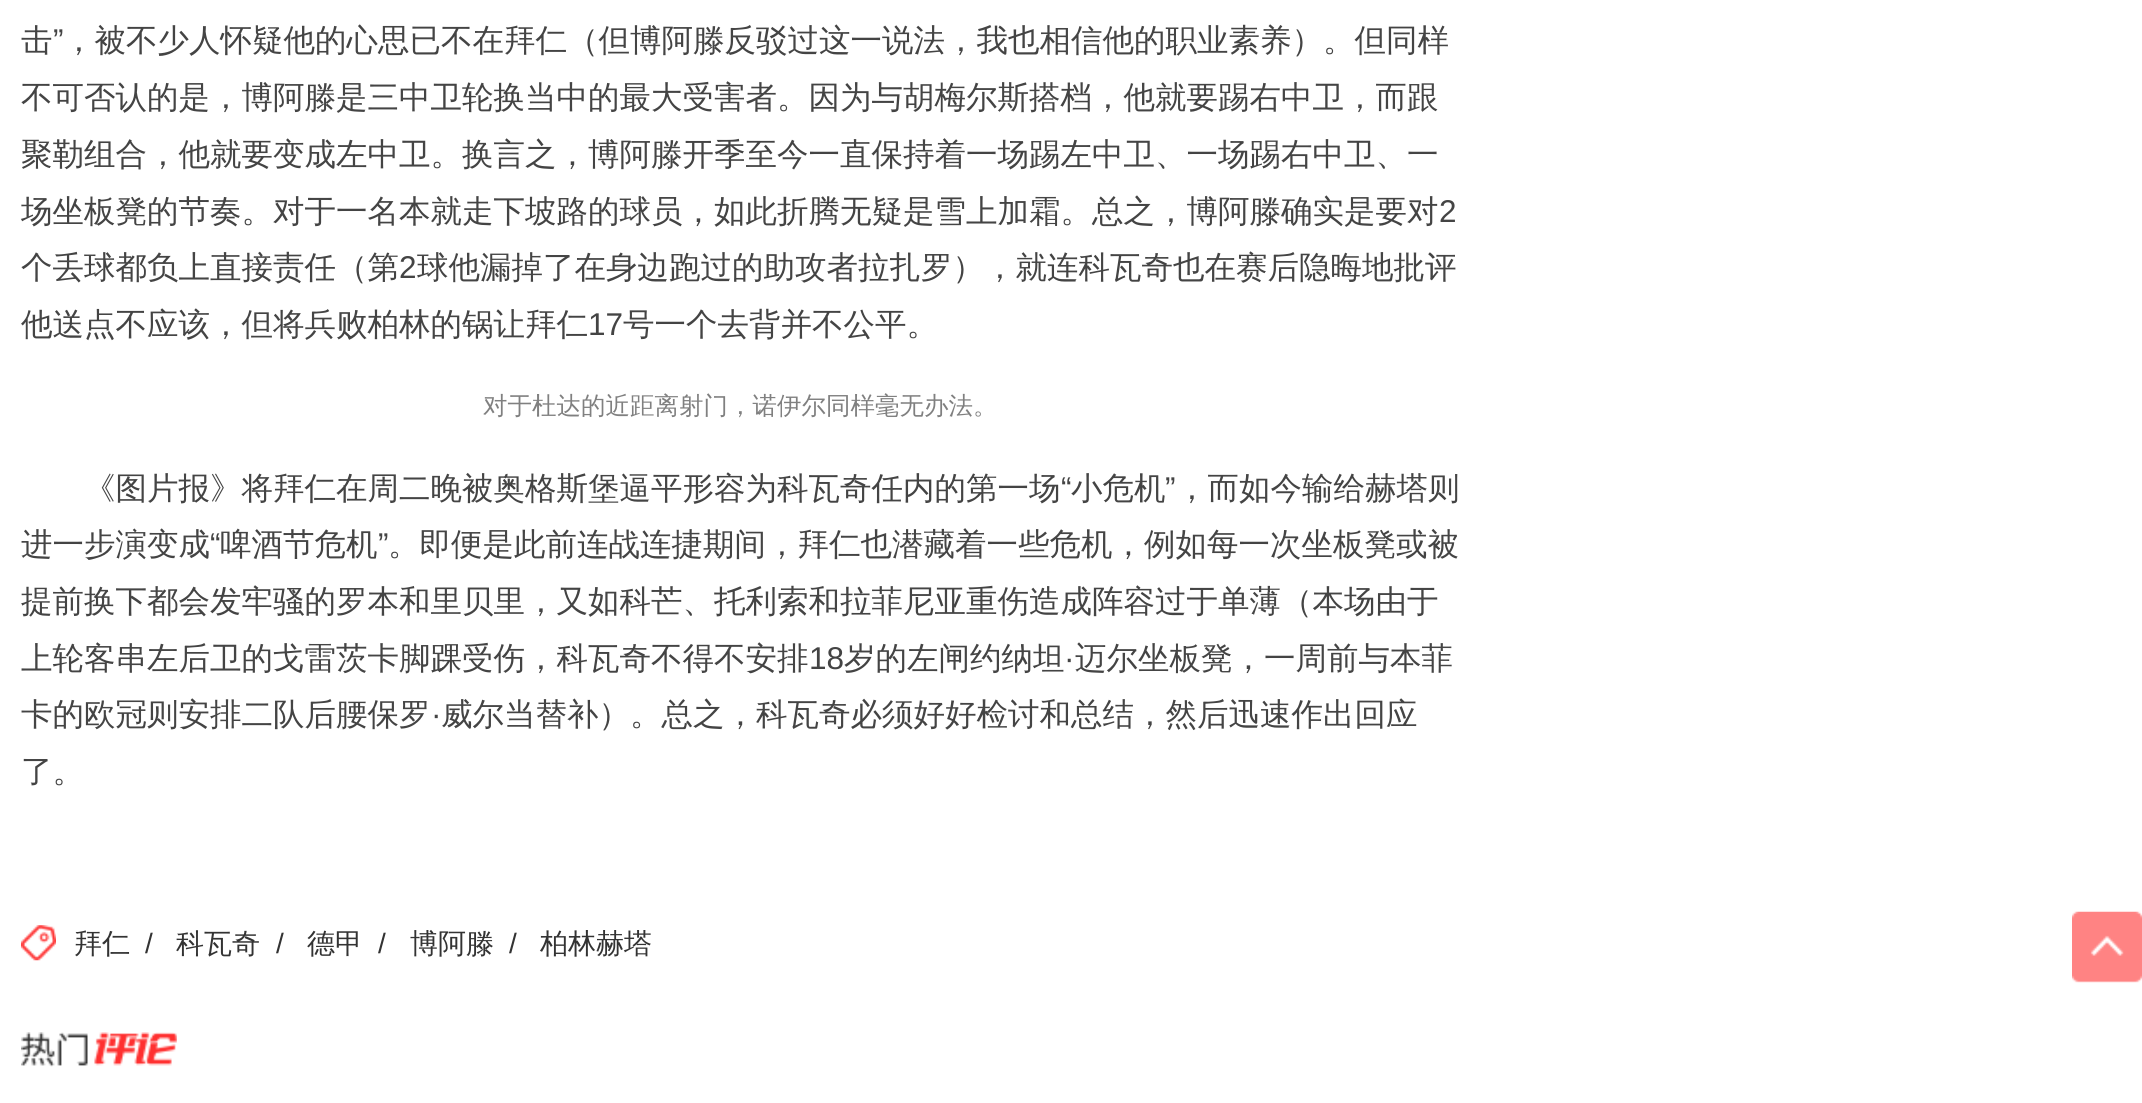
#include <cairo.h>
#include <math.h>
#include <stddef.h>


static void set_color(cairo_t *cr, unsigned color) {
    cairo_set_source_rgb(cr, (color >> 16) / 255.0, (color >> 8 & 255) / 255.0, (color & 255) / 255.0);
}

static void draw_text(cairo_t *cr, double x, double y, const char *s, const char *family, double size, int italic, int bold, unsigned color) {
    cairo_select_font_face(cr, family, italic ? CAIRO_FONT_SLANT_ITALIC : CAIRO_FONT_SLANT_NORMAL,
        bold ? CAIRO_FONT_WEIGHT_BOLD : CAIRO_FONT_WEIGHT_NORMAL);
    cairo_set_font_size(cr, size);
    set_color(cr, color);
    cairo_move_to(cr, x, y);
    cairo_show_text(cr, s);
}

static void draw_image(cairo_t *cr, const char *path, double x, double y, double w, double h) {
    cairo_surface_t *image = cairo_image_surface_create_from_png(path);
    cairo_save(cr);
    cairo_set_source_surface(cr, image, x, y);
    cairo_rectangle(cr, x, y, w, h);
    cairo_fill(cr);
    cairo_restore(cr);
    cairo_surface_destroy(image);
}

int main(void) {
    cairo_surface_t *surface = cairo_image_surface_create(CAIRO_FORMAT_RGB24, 2142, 1103);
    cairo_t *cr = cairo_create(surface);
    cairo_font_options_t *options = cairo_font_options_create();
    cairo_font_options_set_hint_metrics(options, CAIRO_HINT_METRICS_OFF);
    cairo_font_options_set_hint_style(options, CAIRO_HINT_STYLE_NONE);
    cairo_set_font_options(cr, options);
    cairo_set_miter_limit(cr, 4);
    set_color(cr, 0xFFFFFF);
    cairo_paint(cr);
    draw_text(cr, 21, 51, "击", "WenQuanYi Zen Hei Medium", 31.5, 0, 0, 0x444444);
    draw_text(cr, 53, 51, "”", "Liberation Sans", 31.5, 0, 0, 0x444444);
    draw_text(cr, 63, 51, "，被不少人怀疑他的心思已不在拜仁（但博阿滕反驳过这一说法，我也相信他的职业素养）。但同样", "WenQuanYi Zen Hei Medium", 31.5, 0, 0, 0x444444);
    draw_text(cr, 21, 108, "不可否认的是，博阿滕是三中卫轮换当中的最大受害者。因为与胡梅尔斯搭档，他就要踢右中卫，而跟", "WenQuanYi Zen Hei Medium", 31.5, 0, 0, 0x444444);
    draw_text(cr, 21, 165, "聚勒组合，他就要变成左中卫。换言之，博阿滕开季至今一直保持着一场踢左中卫、一场踢右中卫、一", "WenQuanYi Zen Hei Medium", 31.5, 0, 0, 0x444444);
    draw_text(cr, 21, 222, "场坐板凳的节奏。对于一名本就走下坡路的球员，如此折腾无疑是雪上加霜。总之，博阿滕确实是要对", "WenQuanYi Zen Hei Medium", 31.5, 0, 0, 0x444444);
    draw_text(cr, 1439, 222, "2", "Liberation Sans", 31.5, 0, 0, 0x444444);
    draw_text(cr, 21, 278, "个丢球都负上直接责任（第", "WenQuanYi Zen Hei Medium", 31.5, 0, 0, 0x444444);
    draw_text(cr, 399, 278, "2", "Liberation Sans", 31.5, 0, 0, 0x444444);
    draw_text(cr, 417, 278, "球他漏掉了在身边跑过的助攻者拉扎罗），就连科瓦奇也在赛后隐晦地批评", "WenQuanYi Zen Hei Medium", 31.5, 0, 0, 0x444444);
    draw_text(cr, 21, 335, "他送点不应该，但将兵败柏林的锅让拜仁", "WenQuanYi Zen Hei Medium", 31.5, 0, 0, 0x444444);
    draw_text(cr, 588, 335, "17", "Liberation Sans", 31.5, 0, 0, 0x444444);
    draw_text(cr, 623, 335, "号一个去背并不公平。", "WenQuanYi Zen Hei Medium", 31.5, 0, 0, 0x444444);
    draw_text(cr, 483, 414, "对于杜达的近距离射门，诺伊尔同样毫无办法。", "WenQuanYi Zen Hei Medium", 24.5, 0, 0, 0x808080);
    draw_text(cr, 84, 499, "《图片报》将拜仁在周二晚被奥格斯堡逼平形容为科瓦奇任内的第一场", "WenQuanYi Zen Hei Medium", 31.5, 0, 0, 0x444444);
    draw_text(cr, 1061, 499, "“", "Liberation Sans", 31.5, 0, 0, 0x444444);
    draw_text(cr, 1071, 499, "小危机", "WenQuanYi Zen Hei Medium", 31.5, 0, 0, 0x444444);
    draw_text(cr, 1165, 499, "”", "Liberation Sans", 31.5, 0, 0, 0x444444);
    draw_text(cr, 1176, 499, "，而如今输给赫塔则", "WenQuanYi Zen Hei Medium", 31.5, 0, 0, 0x444444);
    draw_text(cr, 21, 555, "进一步演变成", "WenQuanYi Zen Hei Medium", 31.5, 0, 0, 0x444444);
    draw_text(cr, 210, 555, "“", "Liberation Sans", 31.5, 0, 0, 0x444444);
    draw_text(cr, 220, 555, "啤酒节危机", "WenQuanYi Zen Hei Medium", 31.5, 0, 0, 0x444444);
    draw_text(cr, 378, 555, "”", "Liberation Sans", 31.5, 0, 0, 0x444444);
    draw_text(cr, 388, 555, "。即便是此前连战连捷期间，拜仁也潜藏着一些危机，例如每一次坐板凳或被", "WenQuanYi Zen Hei Medium", 31.5, 0, 0, 0x444444);
    draw_text(cr, 21, 612, "提前换下都会发牢骚的罗本和里贝里，又如科芒、托利索和拉菲尼亚重伤造成阵容过于单薄（本场由于", "WenQuanYi Zen Hei Medium", 31.5, 0, 0, 0x444444);
    draw_text(cr, 21, 669, "上轮客串左后卫的戈雷茨卡脚踝受伤，科瓦奇不得不安排", "WenQuanYi Zen Hei Medium", 31.5, 0, 0, 0x444444);
    draw_text(cr, 809, 669, "18", "Liberation Sans", 31.5, 0, 0, 0x444444);
    draw_text(cr, 844, 669, "岁的左闸约纳坦", "WenQuanYi Zen Hei Medium", 31.5, 0, 0, 0x444444);
    draw_text(cr, 1064, 669, "·", "Liberation Sans", 31.5, 0, 0, 0x444444);
    draw_text(cr, 1075, 669, "迈尔坐板凳，一周前与本菲", "WenQuanYi Zen Hei Medium", 31.5, 0, 0, 0x444444);
    draw_text(cr, 21, 725, "卡的欧冠则安排二队后腰保罗", "WenQuanYi Zen Hei Medium", 31.5, 0, 0, 0x444444);
    draw_text(cr, 431, 725, "·", "Liberation Sans", 31.5, 0, 0, 0x444444);
    draw_text(cr, 441, 725, "威尔当替补）。总之，科瓦奇必须好好检讨和总结，然后迅速作出回应", "WenQuanYi Zen Hei Medium", 31.5, 0, 0, 0x444444);
    draw_text(cr, 21, 782, "了。", "WenQuanYi Zen Hei Medium", 31.5, 0, 0, 0x444444);
    draw_image(cr, "assets/img1.png", 21, 925, 35, 36);
    draw_text(cr, 74, 953, "拜仁", "WenQuanYi Zen Hei Medium", 28, 0, 0, 0x333333);
    draw_text(cr, 145, 953, "/", "Liberation Sans", 28, 0, 0, 0x333333);
    draw_text(cr, 176, 953, "科瓦奇", "WenQuanYi Zen Hei Medium", 28, 0, 0, 0x333333);
    draw_text(cr, 276, 953, "/", "Liberation Sans", 28, 0, 0, 0x333333);
    draw_text(cr, 307, 953, "德甲", "WenQuanYi Zen Hei Medium", 28, 0, 0, 0x333333);
    draw_text(cr, 378, 953, "/", "Liberation Sans", 28, 0, 0, 0x333333);
    draw_text(cr, 410, 953, "博阿滕", "WenQuanYi Zen Hei Medium", 28, 0, 0, 0x333333);
    draw_text(cr, 509, 953, "/", "Liberation Sans", 28, 0, 0, 0x333333);
    draw_text(cr, 540, 953, "柏林赫塔", "WenQuanYi Zen Hei Medium", 28, 0, 0, 0x333333);
    draw_image(cr, "assets/img2.png", 21, 1032, 156, 35);
    draw_image(cr, "assets/img3.png", 2072, 911, 70, 72);
    cairo_surface_write_to_png(surface, "output.png");
    cairo_font_options_destroy(options);
    cairo_destroy(cr);
    cairo_surface_destroy(surface);
    return 0;
}
